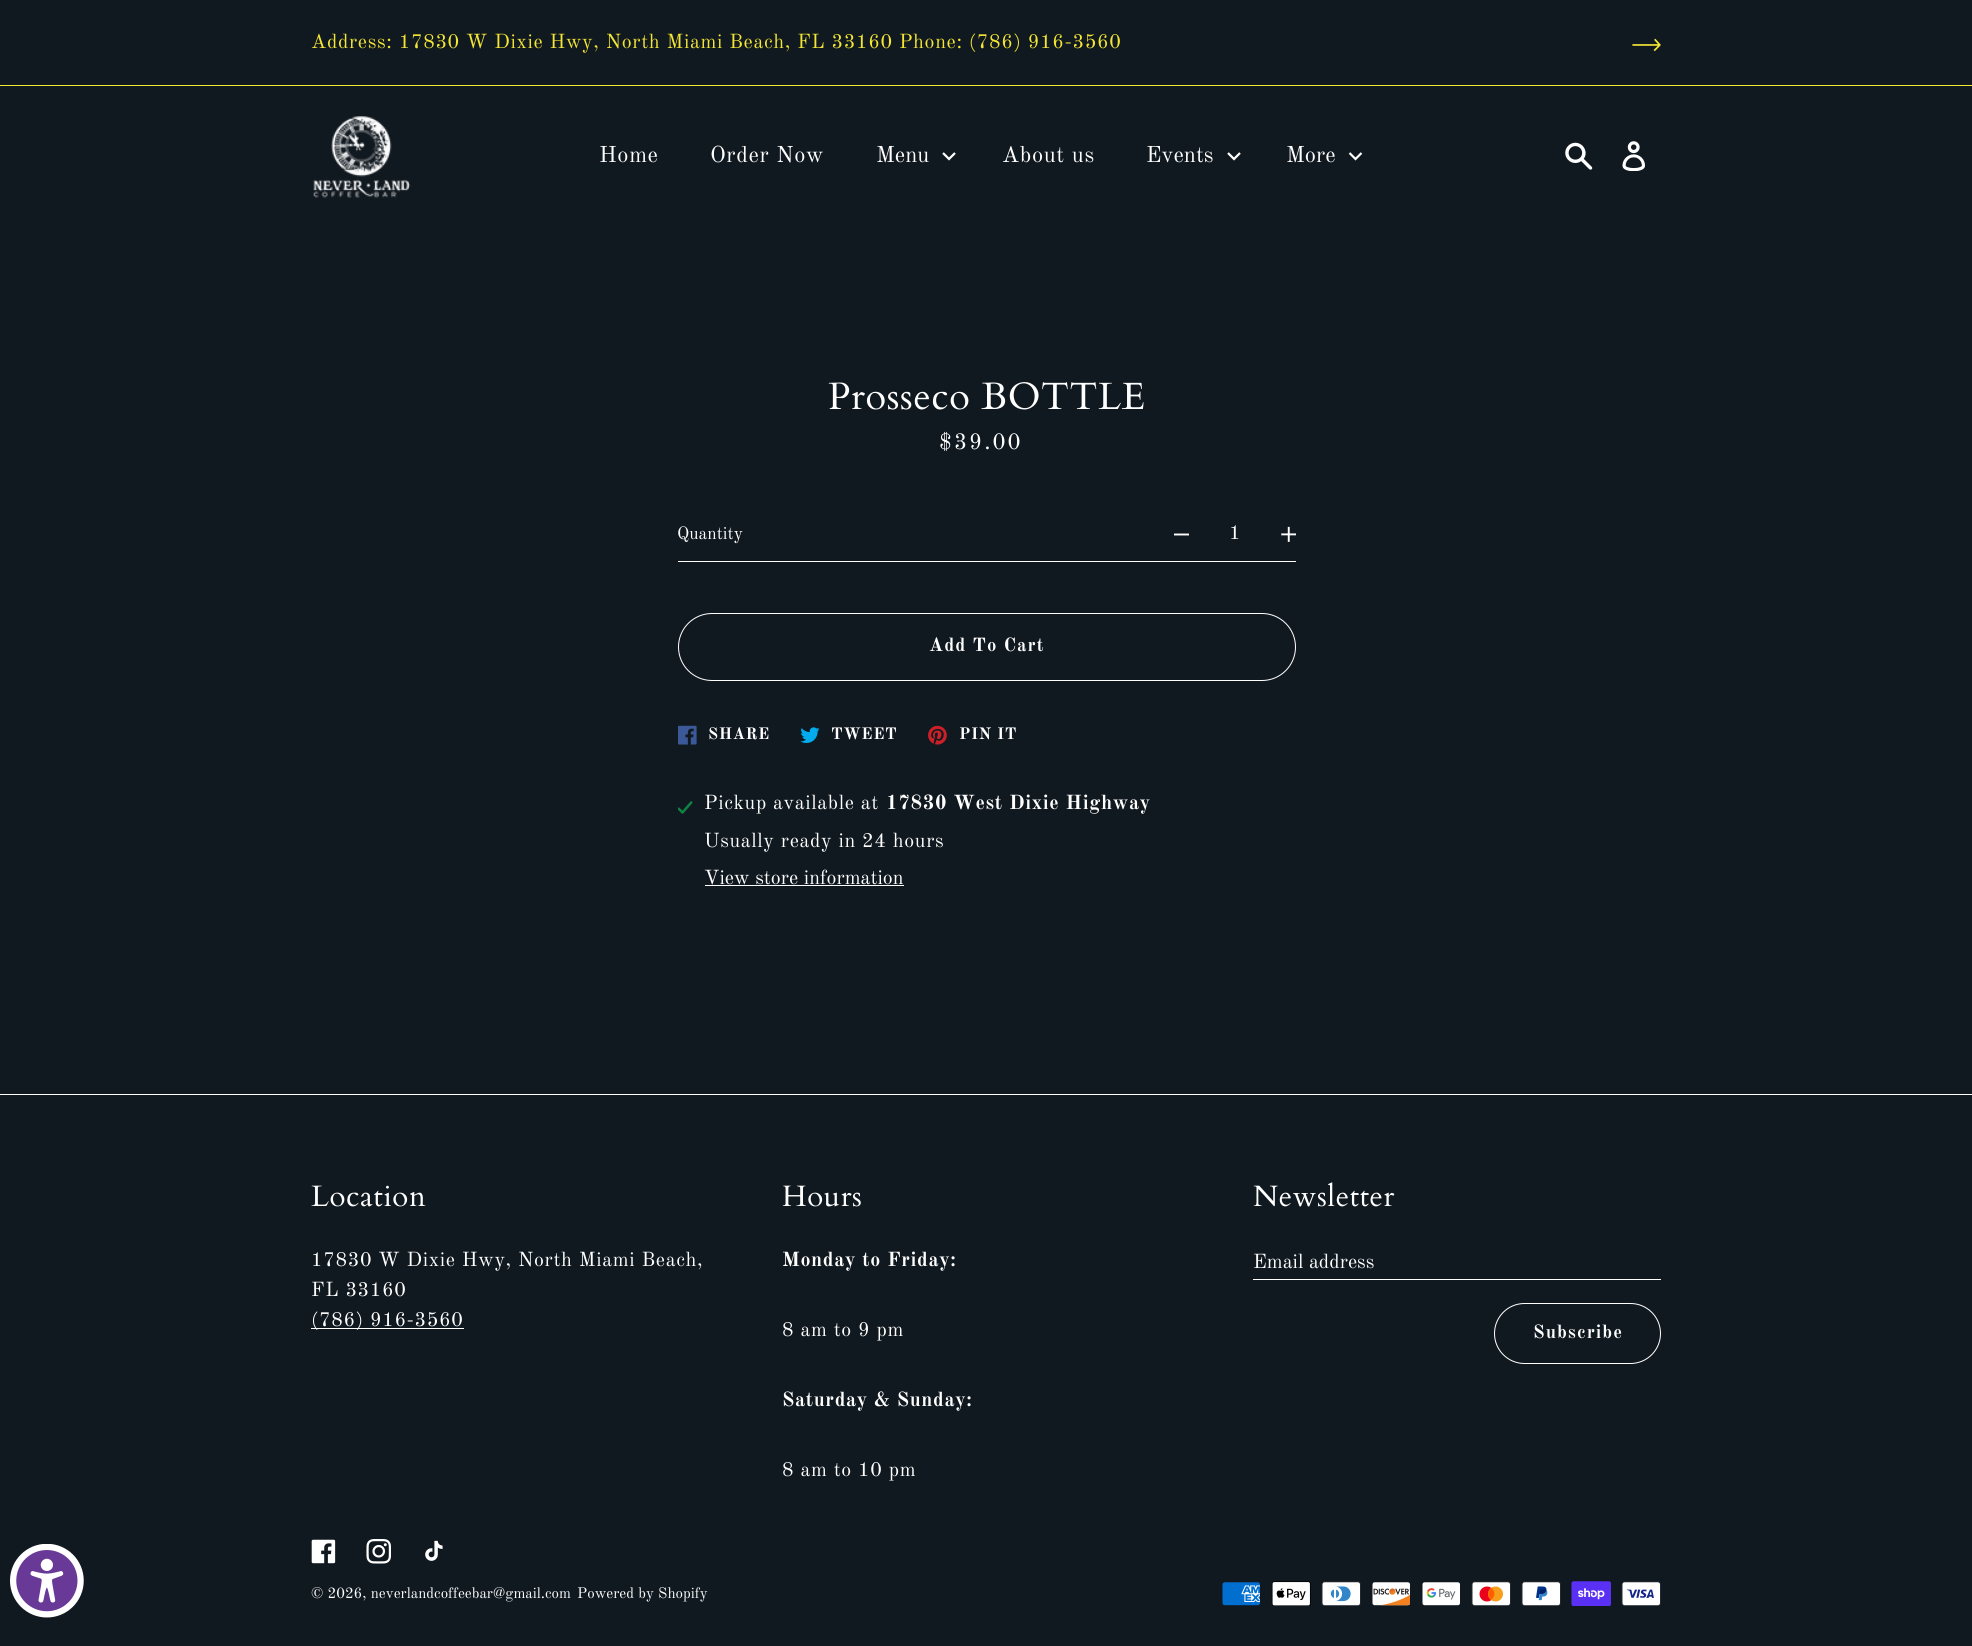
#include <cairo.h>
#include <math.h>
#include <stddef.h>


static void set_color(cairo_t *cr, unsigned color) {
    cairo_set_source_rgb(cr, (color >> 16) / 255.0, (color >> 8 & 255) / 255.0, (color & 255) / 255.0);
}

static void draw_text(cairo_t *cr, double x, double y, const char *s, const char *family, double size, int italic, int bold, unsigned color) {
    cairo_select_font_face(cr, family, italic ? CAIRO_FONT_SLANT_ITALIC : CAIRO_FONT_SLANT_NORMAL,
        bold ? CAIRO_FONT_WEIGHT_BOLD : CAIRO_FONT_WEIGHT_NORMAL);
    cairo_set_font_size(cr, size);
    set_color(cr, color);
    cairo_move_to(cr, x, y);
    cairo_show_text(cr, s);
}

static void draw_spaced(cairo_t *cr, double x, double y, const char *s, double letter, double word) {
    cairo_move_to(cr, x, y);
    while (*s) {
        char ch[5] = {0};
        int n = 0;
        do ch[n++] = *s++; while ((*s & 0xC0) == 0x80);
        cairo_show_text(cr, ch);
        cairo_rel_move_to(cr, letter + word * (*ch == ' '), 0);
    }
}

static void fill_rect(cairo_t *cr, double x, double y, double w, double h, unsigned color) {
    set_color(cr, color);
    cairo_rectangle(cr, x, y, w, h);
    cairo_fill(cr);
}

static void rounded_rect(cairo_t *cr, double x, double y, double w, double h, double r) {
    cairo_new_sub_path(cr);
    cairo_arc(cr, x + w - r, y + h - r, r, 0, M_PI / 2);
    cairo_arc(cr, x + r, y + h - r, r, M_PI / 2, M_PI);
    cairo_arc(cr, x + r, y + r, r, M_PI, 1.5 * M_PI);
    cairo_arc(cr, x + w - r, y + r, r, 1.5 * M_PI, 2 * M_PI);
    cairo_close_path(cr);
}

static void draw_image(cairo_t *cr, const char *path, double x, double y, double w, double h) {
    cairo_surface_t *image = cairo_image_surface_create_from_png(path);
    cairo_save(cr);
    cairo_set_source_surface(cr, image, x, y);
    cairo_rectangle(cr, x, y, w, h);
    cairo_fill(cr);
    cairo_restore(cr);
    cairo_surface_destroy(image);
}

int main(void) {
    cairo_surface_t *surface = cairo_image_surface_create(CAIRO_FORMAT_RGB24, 1972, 1646);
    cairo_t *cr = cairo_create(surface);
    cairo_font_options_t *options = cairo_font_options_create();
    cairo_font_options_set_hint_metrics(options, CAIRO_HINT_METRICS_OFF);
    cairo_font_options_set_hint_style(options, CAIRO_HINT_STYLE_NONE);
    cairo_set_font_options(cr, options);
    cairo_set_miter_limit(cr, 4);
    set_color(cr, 0x111920);
    cairo_paint(cr);
    draw_image(cr, "assets/img1.png", 10, 1544, 74, 74);
    fill_rect(cr, 0, 85, 1972, 1, 0xF4E734);
    cairo_select_font_face(cr, "Old Standard TT", CAIRO_FONT_SLANT_NORMAL, CAIRO_FONT_WEIGHT_NORMAL);
    cairo_set_font_size(cr, 20);
    draw_spaced(cr, 311, 48, "Address: 17830 W Dixie Hwy, North Miami Beach, FL 33160 Phone: (786) 916-3560", 0.62, 0);
    draw_image(cr, "assets/img2.png", 1632, 38, 29, 14);
    draw_image(cr, "assets/img3.png", 313, 116, 98, 82);
    cairo_set_font_size(cr, 22.5);
    set_color(cr, 0xFFFFFF);
    draw_spaced(cr, 599, 162, "Home", 0.62, 0);
    draw_spaced(cr, 710, 162, "Order Now", 0.62, 0);
    draw_text(cr, 876, 162, "Menu", "Old Standard TT", 22.5, 0, 0, 0xFFFFFF);
    cairo_new_path(cr);
    cairo_move_to(cr, 943, 153);
    cairo_line_to(cr, 949, 159);
    cairo_line_to(cr, 955, 153);
    cairo_set_line_width(cr, 2.2);
    cairo_stroke(cr);
    draw_spaced(cr, 1002, 162, "About us", 0.62, 0);
    draw_text(cr, 1146, 162, "Events", "Old Standard TT", 22.5, 0, 0, 0xFFFFFF);
    cairo_new_path(cr);
    cairo_move_to(cr, 1228, 153);
    cairo_line_to(cr, 1234, 159);
    cairo_line_to(cr, 1240, 153);
    cairo_stroke(cr);
    draw_text(cr, 1286, 162, "More", "Old Standard TT", 22.5, 0, 0, 0xFFFFFF);
    cairo_new_path(cr);
    cairo_move_to(cr, 1349.5, 153);
    cairo_line_to(cr, 1355.5, 159);
    cairo_line_to(cr, 1361.5, 153);
    cairo_stroke(cr);
    draw_image(cr, "assets/img4.png", 1565, 142, 28, 28);
    draw_image(cr, "assets/img5.png", 1622, 141, 23, 30);
    cairo_select_font_face(cr, "Cardo", CAIRO_FONT_SLANT_NORMAL, CAIRO_FONT_WEIGHT_NORMAL);
    cairo_set_font_size(cr, 38);
    draw_spaced(cr, 828, 409, "Prosseco BOTTLE", 0.62, 0);
    cairo_select_font_face(cr, "Old Standard TT", CAIRO_FONT_SLANT_NORMAL, CAIRO_FONT_WEIGHT_NORMAL);
    cairo_set_font_size(cr, 22.5);
    draw_spaced(cr, 939, 449, "$39.00", 2, 0);
    fill_rect(cr, 678, 561, 618, 1, 0xFFFFFF);
    draw_text(cr, 677, 539, "Quantity", "Old Standard TT", 17.5, 0, 0, 0xFFFFFF);
    cairo_new_path(cr);
    cairo_move_to(cr, 1174, 534.5);
    cairo_line_to(cr, 1189, 534.5);
    cairo_set_line_width(cr, 1.9);
    cairo_stroke(cr);
    draw_text(cr, 1229, 539, "1", "Old Standard TT", 20, 0, 0, 0xFFFFFF);
    draw_image(cr, "assets/img6.png", 1281, 526, 15, 16);
    rounded_rect(cr, 678.5, 613.5, 617, 67, 33.5);
    cairo_set_line_width(cr, 1);
    cairo_stroke(cr);
    cairo_select_font_face(cr, "Old Standard TT", CAIRO_FONT_SLANT_NORMAL, CAIRO_FONT_WEIGHT_BOLD);
    cairo_set_font_size(cr, 18.75);
    draw_spaced(cr, 929, 651, "Add To Cart", 1, 0);
    draw_image(cr, "assets/img7.png", 678, 725, 19, 20);
    cairo_set_font_size(cr, 16.25);
    draw_spaced(cr, 708, 739, "SHARE", 0.62, 0);
    draw_image(cr, "assets/img8.png", 800, 727, 20, 16);
    draw_spaced(cr, 831, 739, "TWEET", 0.62, 0);
    draw_image(cr, "assets/img9.png", 928, 725, 19, 20);
    draw_spaced(cr, 959, 739, "PIN IT", 0.62, 0);
    draw_image(cr, "assets/img10.png", 678, 801, 15, 13);
    cairo_select_font_face(cr, "Old Standard TT", CAIRO_FONT_SLANT_NORMAL, CAIRO_FONT_WEIGHT_NORMAL);
    cairo_set_font_size(cr, 20);
    draw_spaced(cr, 704, 809, "Pickup available at", 0.62, 0);
    cairo_select_font_face(cr, "Old Standard TT", CAIRO_FONT_SLANT_NORMAL, CAIRO_FONT_WEIGHT_BOLD);
    draw_spaced(cr, 886, 809, "17830 West Dixie Highway", 0.62, 0);
    cairo_select_font_face(cr, "Old Standard TT", CAIRO_FONT_SLANT_NORMAL, CAIRO_FONT_WEIGHT_NORMAL);
    draw_spaced(cr, 704, 847, "Usually ready in 24 hours", 0.62, 0);
    draw_text(cr, 704, 884, "View store information", "Old Standard TT", 20, 0, 0, 0xFFFFFF);
    fill_rect(cr, 705, 885, 199, 1, 0xFFFFFF);
    fill_rect(cr, 0, 1094, 1972, 1, 0xFFFFFF);
    cairo_select_font_face(cr, "Cardo", CAIRO_FONT_SLANT_NORMAL, CAIRO_FONT_WEIGHT_NORMAL);
    cairo_set_font_size(cr, 29.5);
    draw_spaced(cr, 311, 1206, "Location", 0.62, 0);
    cairo_select_font_face(cr, "Old Standard TT", CAIRO_FONT_SLANT_NORMAL, CAIRO_FONT_WEIGHT_NORMAL);
    cairo_set_font_size(cr, 20);
    draw_spaced(cr, 311, 1266, "17830 W Dixie Hwy, North Miami Beach,", 0.62, 0);
    draw_spaced(cr, 311, 1296, "FL 33160", 0.62, 0);
    fill_rect(cr, 311, 1328, 153, 1, 0xFFFFFF);
    draw_spaced(cr, 311, 1326, "(786) 916-3560", 0.62, 0);
    cairo_select_font_face(cr, "Cardo", CAIRO_FONT_SLANT_NORMAL, CAIRO_FONT_WEIGHT_NORMAL);
    cairo_set_font_size(cr, 29.5);
    draw_spaced(cr, 782, 1206, "Hours", 0.62, 0);
    cairo_select_font_face(cr, "Old Standard TT", CAIRO_FONT_SLANT_NORMAL, CAIRO_FONT_WEIGHT_BOLD);
    cairo_set_font_size(cr, 20);
    draw_spaced(cr, 782, 1266, "Monday to Friday:", 0.62, 0);
    cairo_select_font_face(cr, "Old Standard TT", CAIRO_FONT_SLANT_NORMAL, CAIRO_FONT_WEIGHT_NORMAL);
    draw_spaced(cr, 782, 1336, "8 am to 9 pm", 0.62, 0);
    cairo_select_font_face(cr, "Old Standard TT", CAIRO_FONT_SLANT_NORMAL, CAIRO_FONT_WEIGHT_BOLD);
    draw_spaced(cr, 782, 1406, "Saturday & Sunday:", 0.62, 0);
    cairo_select_font_face(cr, "Old Standard TT", CAIRO_FONT_SLANT_NORMAL, CAIRO_FONT_WEIGHT_NORMAL);
    draw_spaced(cr, 782, 1476, "8 am to 10 pm", 0.62, 0);
    cairo_select_font_face(cr, "Cardo", CAIRO_FONT_SLANT_NORMAL, CAIRO_FONT_WEIGHT_NORMAL);
    cairo_set_font_size(cr, 29.5);
    draw_spaced(cr, 1253, 1206, "Newsletter", 0.62, 0);
    draw_text(cr, 1253, 1268, "Email address", "Old Standard TT", 20, 0, 0, 0xFFFFFF);
    fill_rect(cr, 1253, 1279, 408, 1, 0xFFFFFF);
    rounded_rect(cr, 1494.5, 1303.5, 166, 60, 30);
    cairo_stroke(cr);
    cairo_select_font_face(cr, "Old Standard TT", CAIRO_FONT_SLANT_NORMAL, CAIRO_FONT_WEIGHT_BOLD);
    cairo_set_font_size(cr, 18.75);
    draw_spaced(cr, 1533, 1338, "Subscribe", 1, 0);
    draw_image(cr, "assets/img11.png", 311, 1539, 25, 25);
    draw_image(cr, "assets/img12.png", 366, 1539, 25, 25);
    draw_image(cr, "assets/img13.png", 425, 1540, 18, 21);
    draw_text(cr, 311, 1598, "© 2026, neverlandcoffeebar@gmail.com", "Old Standard TT", 15, 0, 0, 0xFFFFFF);
    draw_text(cr, 577, 1598, "Powered by Shopify", "Old Standard TT", 15, 0, 0, 0xFFFFFF);
    draw_image(cr, "assets/img14.png", 1222, 1582, 38, 24);
    draw_image(cr, "assets/img15.png", 1271, 1581, 40, 25);
    draw_image(cr, "assets/img16.png", 1321, 1581, 40, 25);
    draw_image(cr, "assets/img17.png", 1372, 1582, 38, 24);
    draw_image(cr, "assets/img18.png", 1422, 1582, 38, 24);
    draw_image(cr, "assets/img19.png", 1471, 1581, 40, 25);
    draw_image(cr, "assets/img20.png", 1521, 1581, 40, 25);
    draw_image(cr, "assets/img21.png", 1571, 1581, 40, 25);
    draw_image(cr, "assets/img22.png", 1621, 1581, 40, 25);
    cairo_surface_write_to_png(surface, "output.png");
    cairo_font_options_destroy(options);
    cairo_destroy(cr);
    cairo_surface_destroy(surface);
    return 0;
}
